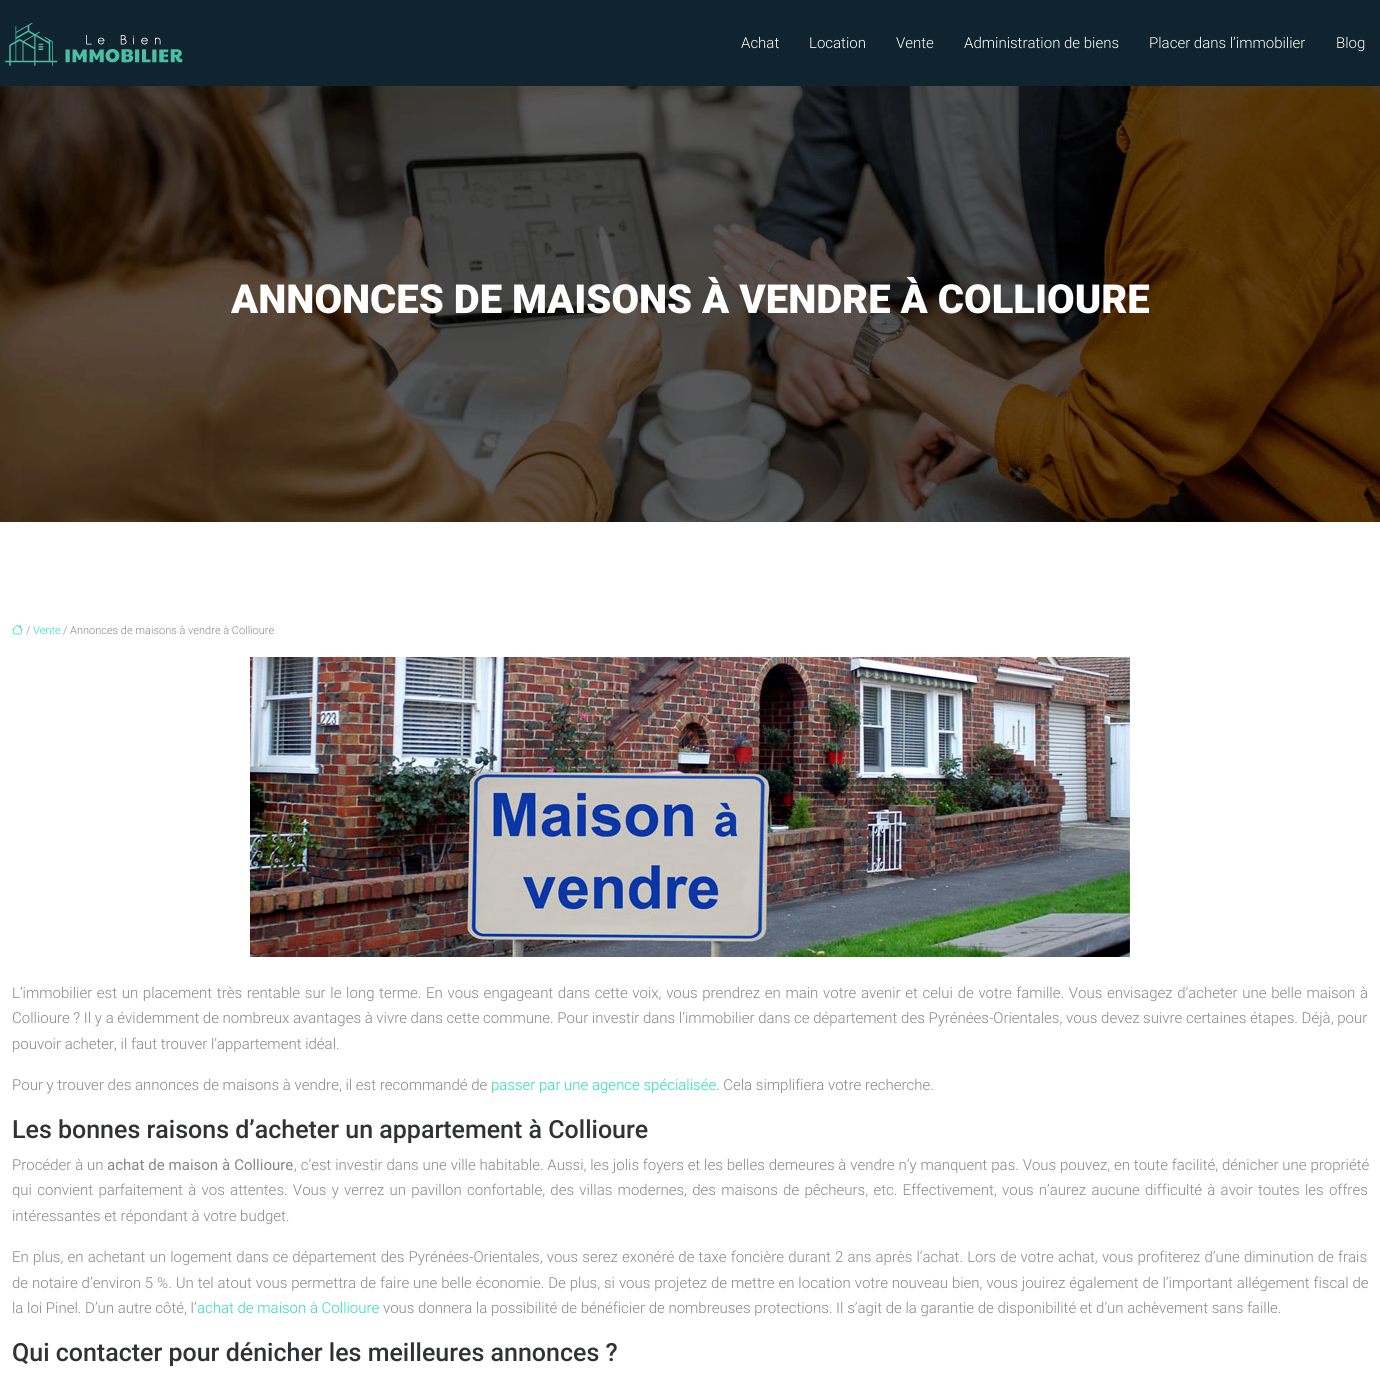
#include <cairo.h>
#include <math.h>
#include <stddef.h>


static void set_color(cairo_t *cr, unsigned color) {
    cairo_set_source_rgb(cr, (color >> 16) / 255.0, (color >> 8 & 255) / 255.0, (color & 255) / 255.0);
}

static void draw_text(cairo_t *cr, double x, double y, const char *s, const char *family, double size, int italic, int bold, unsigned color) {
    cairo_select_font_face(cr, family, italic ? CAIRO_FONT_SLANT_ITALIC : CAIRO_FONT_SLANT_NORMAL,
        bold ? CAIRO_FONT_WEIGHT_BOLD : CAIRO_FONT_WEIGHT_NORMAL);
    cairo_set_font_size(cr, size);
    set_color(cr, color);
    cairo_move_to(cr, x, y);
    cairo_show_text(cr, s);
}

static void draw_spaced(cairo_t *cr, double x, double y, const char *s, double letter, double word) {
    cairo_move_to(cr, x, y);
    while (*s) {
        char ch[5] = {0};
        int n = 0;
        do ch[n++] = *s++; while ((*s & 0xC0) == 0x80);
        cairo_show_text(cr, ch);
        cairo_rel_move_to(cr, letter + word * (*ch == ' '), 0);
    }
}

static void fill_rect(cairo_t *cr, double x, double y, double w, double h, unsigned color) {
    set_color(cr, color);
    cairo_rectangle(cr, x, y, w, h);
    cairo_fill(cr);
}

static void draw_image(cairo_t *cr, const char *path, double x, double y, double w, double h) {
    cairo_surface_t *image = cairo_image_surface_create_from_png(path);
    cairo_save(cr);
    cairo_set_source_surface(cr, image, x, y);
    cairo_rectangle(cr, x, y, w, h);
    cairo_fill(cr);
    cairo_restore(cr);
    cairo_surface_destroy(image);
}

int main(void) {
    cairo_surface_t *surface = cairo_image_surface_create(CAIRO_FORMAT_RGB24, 1380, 1380);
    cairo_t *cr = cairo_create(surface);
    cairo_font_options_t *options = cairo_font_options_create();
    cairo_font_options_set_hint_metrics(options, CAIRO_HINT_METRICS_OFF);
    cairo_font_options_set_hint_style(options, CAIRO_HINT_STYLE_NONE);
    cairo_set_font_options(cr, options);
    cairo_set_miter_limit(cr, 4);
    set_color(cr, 0xFFFFFF);
    cairo_paint(cr);
    fill_rect(cr, 0, 0, 1380, 86, 0x10242F);
    draw_image(cr, "assets/img1.png", 5, 22, 178, 44);
    draw_text(cr, 741, 48, "Achat", "Roboto Light", 15, 0, 0, 0xFFFFFF);
    draw_text(cr, 809, 48, "Location", "Roboto Light", 15, 0, 0, 0xFFFFFF);
    draw_text(cr, 896, 48, "Vente", "Roboto Light", 15, 0, 0, 0xFFFFFF);
    draw_text(cr, 964, 48, "Administration de biens", "Roboto Light", 15, 0, 0, 0xFFFFFF);
    draw_text(cr, 1149, 48, "Placer dans l’immobilier", "Roboto Light", 15, 0, 0, 0xFFFFFF);
    draw_text(cr, 1336, 48, "Blog", "Roboto Light", 15, 0, 0, 0xFFFFFF);
    draw_image(cr, "assets/img2.png", 0, 86, 1380, 436);
    draw_text(cr, 231, 313, "ANNONCES DE MAISONS À VENDRE À COLLIOURE", "Roboto Black", 40, 0, 0, 0xFFFFFF);
    draw_image(cr, "assets/img3.png", 12, 624, 11, 11);
    draw_text(cr, 26, 634, "/", "Roboto Light", 11, 0, 0, 0x868686);
    draw_text(cr, 33, 634, "Vente", "Roboto Light", 11, 0, 0, 0x25DFB3);
    draw_text(cr, 63, 634, "/ Annonces de maisons à vendre à Collioure", "Roboto Light", 11, 0, 0, 0x868686);
    draw_image(cr, "assets/img4.png", 250, 657, 880, 300);
    cairo_set_font_size(cr, 15);
    draw_spaced(cr, 12, 998, "L’immobilier est un placement très rentable sur le long terme. En vous engageant dans cette voix, vous prendrez en main votre avenir et celui de votre famille. Vous envisagez d’acheter une belle maison à", 0, 1);
    draw_text(cr, 12, 1023, "Collioure ? Il y a évidemment de nombreux avantages à vivre dans cette commune. Pour investir dans l’immobilier dans ce département des Pyrénées-Orientales, vous devez suivre certaines étapes. Déjà, pour", "Roboto Light", 15, 0, 0, 0x868686);
    draw_text(cr, 12, 1049, "pouvoir acheter, il faut trouver l’appartement idéal.", "Roboto Light", 15, 0, 0, 0x868686);
    draw_text(cr, 12, 1090, "Pour y trouver des annonces de maisons à vendre, il est recommandé de", "Roboto Light", 15, 0, 0, 0x868686);
    draw_text(cr, 491, 1090, "passer par une agence spécialisée", "Roboto Light", 15, 0, 0, 0x25DFB3);
    draw_text(cr, 716, 1090, ". Cela simplifiera votre recherche.", "Roboto Light", 15, 0, 0, 0x868686);
    draw_text(cr, 12, 1138, "Les bonnes raisons d’acheter un appartement à Collioure", "Roboto Medium", 25, 0, 0, 0x313233);
    cairo_select_font_face(cr, "Roboto Light", CAIRO_FONT_SLANT_NORMAL, CAIRO_FONT_WEIGHT_NORMAL);
    cairo_set_font_size(cr, 15);
    set_color(cr, 0x868686);
    draw_spaced(cr, 12, 1170, "Procéder à un", 0, 0.2);
    cairo_select_font_face(cr, "Roboto", CAIRO_FONT_SLANT_NORMAL, CAIRO_FONT_WEIGHT_NORMAL);
    draw_spaced(cr, 107, 1170, "achat de maison à Collioure", 0, 0.2);
    cairo_select_font_face(cr, "Roboto Light", CAIRO_FONT_SLANT_NORMAL, CAIRO_FONT_WEIGHT_NORMAL);
    draw_spaced(cr, 294, 1170, ", c’est investir dans une ville habitable. Aussi, les jolis foyers et les belles demeures à vendre n’y manquent pas. Vous pouvez, en toute facilité, dénicher une propriété", 0, 0.2);
    draw_spaced(cr, 12, 1195, "qui convient parfaitement à vos attentes. Vous y verrez un pavillon confortable, des villas modernes, des maisons de pêcheurs, etc. Effectivement, vous n’aurez aucune difficulté à avoir toutes les offres", 0, 1.65);
    draw_text(cr, 12, 1221, "intéressantes et répondant à votre budget.", "Roboto Light", 15, 0, 0, 0x868686);
    draw_spaced(cr, 12, 1262, "En plus, en achetant un logement dans ce département des Pyrénées-Orientales, vous serez exonéré de taxe foncière durant 2 ans après l’achat. Lors de votre achat, vous profiterez d’une diminution de frais", 0, 0.5);
    draw_spaced(cr, 12, 1288, "de notaire d’environ 5 %. Un tel atout vous permettra de faire une belle économie. De plus, si vous projetez de mettre en location votre nouveau bien, vous jouirez également de l’important allégement fiscal de", 0, 0.25);
    draw_text(cr, 12, 1313, "la loi Pinel. D’un autre côté, l’", "Roboto Light", 15, 0, 0, 0x868686);
    draw_text(cr, 197, 1313, "achat de maison à Collioure", "Roboto Light", 15, 0, 0, 0x25DFB3);
    draw_text(cr, 383, 1313, "vous donnera la possibilité de bénéficier de nombreuses protections. Il s’agit de la garantie de disponibilité et d’un achèvement sans faille.", "Roboto Light", 15, 0, 0, 0x868686);
    draw_text(cr, 12, 1361, "Qui contacter pour dénicher les meilleures annonces ?", "Roboto Medium", 25, 0, 0, 0x313233);
    cairo_surface_write_to_png(surface, "output.png");
    cairo_font_options_destroy(options);
    cairo_destroy(cr);
    cairo_surface_destroy(surface);
    return 0;
}
